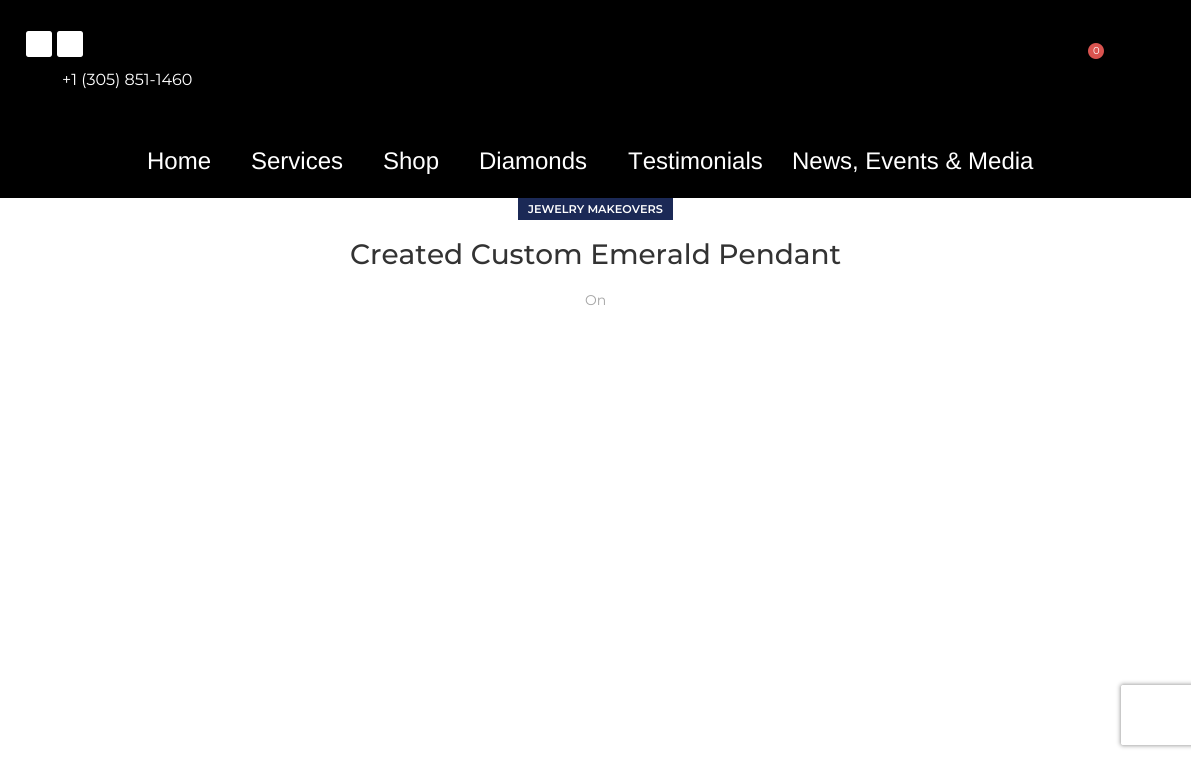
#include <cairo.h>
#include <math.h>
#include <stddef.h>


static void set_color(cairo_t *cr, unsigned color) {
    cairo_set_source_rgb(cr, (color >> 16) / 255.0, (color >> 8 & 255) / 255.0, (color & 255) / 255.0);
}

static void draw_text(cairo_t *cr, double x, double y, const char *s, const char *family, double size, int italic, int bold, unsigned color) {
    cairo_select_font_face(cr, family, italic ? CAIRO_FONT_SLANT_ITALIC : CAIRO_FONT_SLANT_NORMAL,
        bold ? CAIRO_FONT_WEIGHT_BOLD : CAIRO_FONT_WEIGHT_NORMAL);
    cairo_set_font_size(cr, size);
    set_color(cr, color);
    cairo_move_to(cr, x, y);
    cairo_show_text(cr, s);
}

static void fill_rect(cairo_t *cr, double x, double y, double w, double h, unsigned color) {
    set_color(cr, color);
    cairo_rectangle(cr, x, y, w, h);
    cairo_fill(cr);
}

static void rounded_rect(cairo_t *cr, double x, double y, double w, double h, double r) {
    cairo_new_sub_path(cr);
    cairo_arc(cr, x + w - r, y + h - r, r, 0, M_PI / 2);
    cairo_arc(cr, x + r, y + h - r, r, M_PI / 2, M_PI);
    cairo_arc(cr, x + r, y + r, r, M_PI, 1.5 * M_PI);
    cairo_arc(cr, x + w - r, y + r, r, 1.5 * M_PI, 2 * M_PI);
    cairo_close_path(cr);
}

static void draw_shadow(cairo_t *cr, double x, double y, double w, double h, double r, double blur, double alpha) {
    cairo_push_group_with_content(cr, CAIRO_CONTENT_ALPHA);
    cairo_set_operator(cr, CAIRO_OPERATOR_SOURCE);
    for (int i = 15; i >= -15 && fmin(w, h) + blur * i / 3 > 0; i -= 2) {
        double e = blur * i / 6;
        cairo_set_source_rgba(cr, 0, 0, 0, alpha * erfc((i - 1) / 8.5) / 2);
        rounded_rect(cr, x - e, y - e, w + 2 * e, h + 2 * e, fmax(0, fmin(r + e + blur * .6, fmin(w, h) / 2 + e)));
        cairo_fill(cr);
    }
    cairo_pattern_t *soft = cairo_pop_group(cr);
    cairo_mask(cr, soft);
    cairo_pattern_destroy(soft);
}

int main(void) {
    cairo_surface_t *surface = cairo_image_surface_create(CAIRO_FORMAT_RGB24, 1191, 759);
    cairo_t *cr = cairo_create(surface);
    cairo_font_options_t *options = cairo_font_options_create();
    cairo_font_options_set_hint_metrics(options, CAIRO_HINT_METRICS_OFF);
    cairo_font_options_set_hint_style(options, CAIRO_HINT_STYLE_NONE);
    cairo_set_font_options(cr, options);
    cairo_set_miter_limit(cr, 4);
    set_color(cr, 0xFFFFFF);
    cairo_paint(cr);
    fill_rect(cr, 0, 0, 1191, 198, 0x000000);
    set_color(cr, 0xD9534F);
    cairo_arc(cr, 1096, 51, 8, 0, 2 * M_PI);
    cairo_fill(cr);
    draw_text(cr, 1093, 54, "0", "Montserrat", 10, 0, 0, 0xFFFFFF);
    rounded_rect(cr, 26, 31, 26, 26, 2.5);
    cairo_fill(cr);
    rounded_rect(cr, 57, 31, 26, 26, 2.5);
    cairo_fill(cr);
    draw_text(cr, 62, 85, "+1 (305) 851-1460", "Montserrat", 16, 0, 0, 0xFFFFFF);
    draw_text(cr, 147, 169, "Home", "Liberation Sans", 24, 0, 0, 0xFFFFFF);
    draw_text(cr, 251, 169, "Services", "Liberation Sans", 24, 0, 0, 0xFFFFFF);
    draw_text(cr, 383, 169, "Shop", "Liberation Sans", 24, 0, 0, 0xFFFFFF);
    draw_text(cr, 479, 169, "Diamonds", "Liberation Sans", 24, 0, 0, 0xFFFFFF);
    draw_text(cr, 628, 169, "Testimonials", "Liberation Sans", 24, 0, 0, 0xFFFFFF);
    draw_text(cr, 792, 169, "News, Events & Media", "Liberation Sans", 24, 0, 0, 0xFFFFFF);
    fill_rect(cr, 518, 198, 155, 22, 0x1B2956);
    draw_text(cr, 528, 213, "JEWELRY MAKEOVERS", "Montserrat SemiBold", 11.25, 0, 0, 0xFFFFFF);
    draw_text(cr, 350, 264, "Created Custom Emerald Pendant", "Montserrat Medium", 28, 0, 0, 0x333333);
    draw_text(cr, 585, 305, "On", "Montserrat", 14, 0, 0, 0xA5A5A5);
    cairo_save(cr);
    cairo_set_fill_rule(cr, CAIRO_FILL_RULE_EVEN_ODD);
    cairo_new_path(cr);
    cairo_move_to(cr, 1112, 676);
    cairo_line_to(cr, 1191, 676);
    cairo_line_to(cr, 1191, 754);
    cairo_line_to(cr, 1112, 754);
    cairo_close_path(cr);
    cairo_move_to(cr, 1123, 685);
    cairo_line_to(cr, 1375, 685);
    cairo_curve_to(cr, 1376, 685, 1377, 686, 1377, 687);
    cairo_line_to(cr, 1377, 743);
    cairo_curve_to(cr, 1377, 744, 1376, 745, 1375, 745);
    cairo_line_to(cr, 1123, 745);
    cairo_curve_to(cr, 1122, 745, 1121, 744, 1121, 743);
    cairo_line_to(cr, 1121, 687);
    cairo_curve_to(cr, 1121, 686, 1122, 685, 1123, 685);
    cairo_close_path(cr);
    cairo_clip(cr);
    set_color(cr, 0x808080);
    draw_shadow(cr, 1121, 685, 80, 60, 2, 2.5, 1);
    cairo_restore(cr);
    cairo_surface_write_to_png(surface, "output.png");
    cairo_font_options_destroy(options);
    cairo_destroy(cr);
    cairo_surface_destroy(surface);
    return 0;
}
